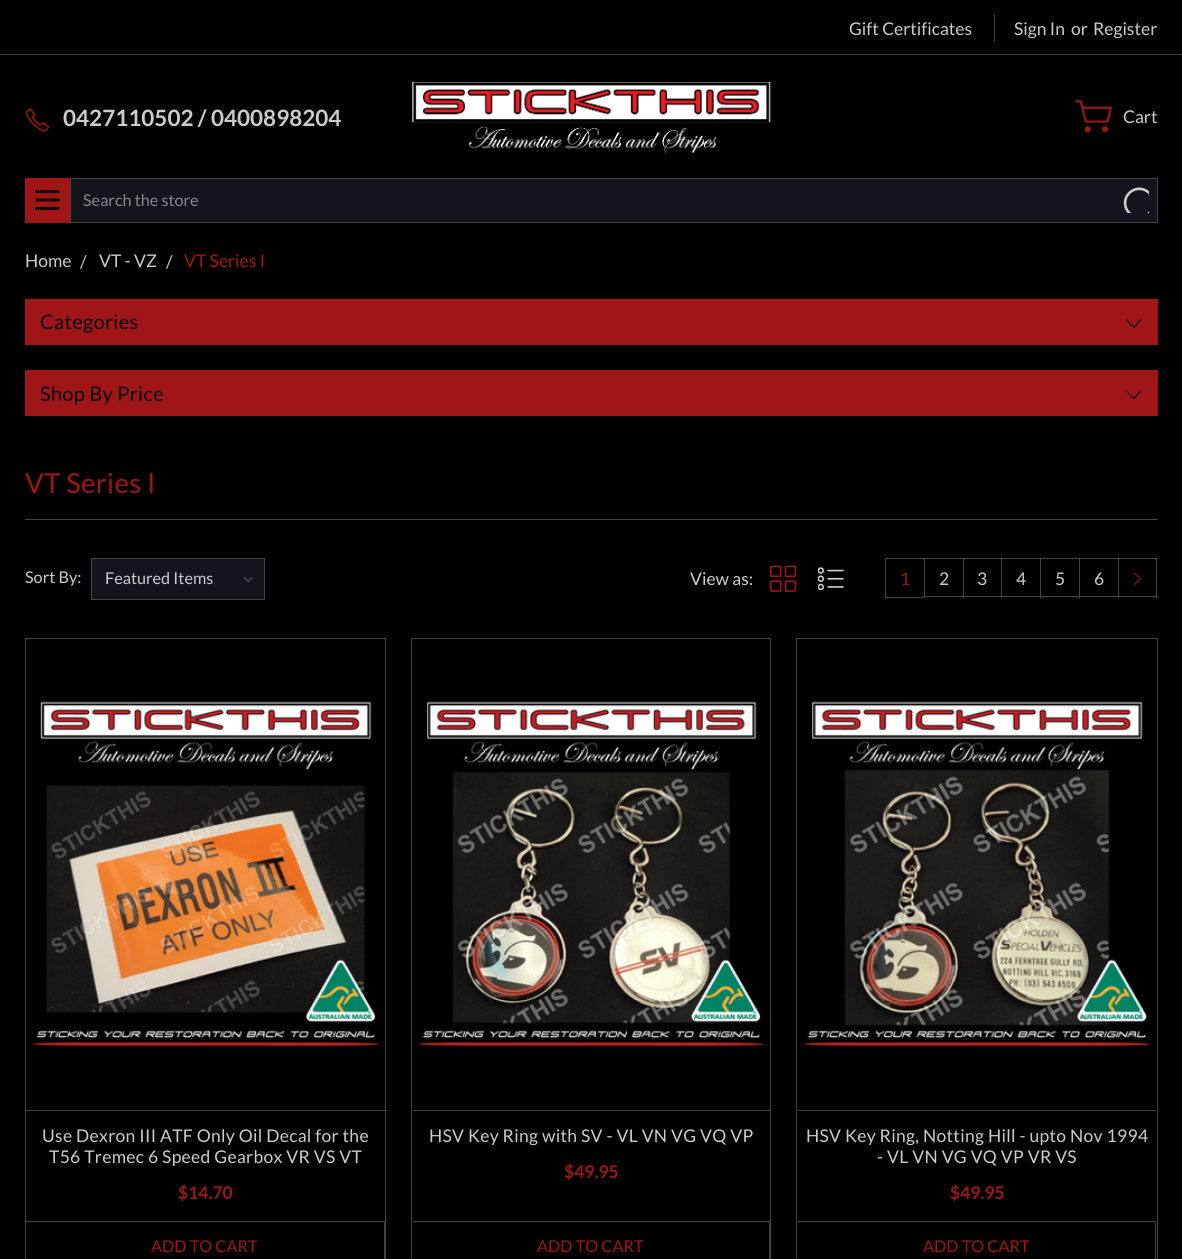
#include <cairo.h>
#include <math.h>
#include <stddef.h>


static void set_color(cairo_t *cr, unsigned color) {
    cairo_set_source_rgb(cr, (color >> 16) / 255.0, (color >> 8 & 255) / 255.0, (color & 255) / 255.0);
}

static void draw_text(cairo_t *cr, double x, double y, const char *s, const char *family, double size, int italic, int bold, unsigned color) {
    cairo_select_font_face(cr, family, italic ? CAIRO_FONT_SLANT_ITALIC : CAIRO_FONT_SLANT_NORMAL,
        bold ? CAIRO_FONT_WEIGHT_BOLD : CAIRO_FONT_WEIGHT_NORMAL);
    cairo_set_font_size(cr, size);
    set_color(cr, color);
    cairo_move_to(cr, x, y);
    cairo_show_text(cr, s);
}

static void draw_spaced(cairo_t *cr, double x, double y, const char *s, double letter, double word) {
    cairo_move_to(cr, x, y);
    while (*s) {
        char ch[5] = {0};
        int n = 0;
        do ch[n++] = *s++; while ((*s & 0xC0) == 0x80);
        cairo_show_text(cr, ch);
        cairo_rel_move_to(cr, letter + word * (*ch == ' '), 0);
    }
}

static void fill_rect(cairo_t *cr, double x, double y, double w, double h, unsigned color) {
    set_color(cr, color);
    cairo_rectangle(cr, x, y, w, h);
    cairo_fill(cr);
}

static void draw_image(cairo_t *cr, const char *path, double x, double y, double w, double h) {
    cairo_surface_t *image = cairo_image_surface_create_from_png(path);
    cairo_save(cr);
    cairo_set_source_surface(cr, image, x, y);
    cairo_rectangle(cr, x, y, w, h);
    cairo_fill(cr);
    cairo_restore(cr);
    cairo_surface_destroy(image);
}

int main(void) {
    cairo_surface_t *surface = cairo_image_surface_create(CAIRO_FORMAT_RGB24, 1182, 1259);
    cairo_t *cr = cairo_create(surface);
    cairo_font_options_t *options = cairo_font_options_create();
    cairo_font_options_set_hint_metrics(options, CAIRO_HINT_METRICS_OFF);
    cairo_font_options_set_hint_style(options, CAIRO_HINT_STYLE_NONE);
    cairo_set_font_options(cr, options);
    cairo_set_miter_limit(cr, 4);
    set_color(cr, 0x000000);
    cairo_paint(cr);
    fill_rect(cr, 0, 54, 1182, 1, 0x444444);
    draw_text(cr, 849, 35, "Gift Certificates", "Lato", 17.5, 0, 0, 0xCCCCCC);
    fill_rect(cr, 994, 15, 1, 26, 0x444444);
    draw_text(cr, 1014, 35, "Sign In", "Lato", 17.5, 0, 0, 0xCCCCCC);
    draw_text(cr, 1071, 35, "or", "Lato", 17.5, 0, 0, 0xCCCCCC);
    draw_text(cr, 1093, 35, "Register", "Lato", 17.5, 0, 0, 0xCCCCCC);
    draw_image(cr, "assets/img1.png", 25, 108, 25, 24);
    draw_text(cr, 63, 126, "0427110502 / 0400898204", "Lato", 22.5, 0, 1, 0xCCCCCC);
    draw_image(cr, "assets/img2.png", 412, 82, 359, 71);
    draw_image(cr, "assets/img3.png", 1075, 100, 37, 33);
    draw_text(cr, 1123, 123, "Cart", "Lato", 17.5, 0, 0, 0xCCCCCC);
    fill_rect(cr, 25, 178, 45, 45, 0xA01515);
    draw_image(cr, "assets/img4.png", 35, 190, 25, 20);
    set_color(cr, 0x14141D);
    cairo_rectangle(cr, 70.5, 178.5, 1087, 44);
    cairo_fill_preserve(cr);
    set_color(cr, 0x444444);
    cairo_set_line_width(cr, 1);
    cairo_stroke(cr);
    draw_text(cr, 83, 206, "Search the store", "Lato", 16.25, 0, 0, 0x888888);
    draw_image(cr, "assets/img5.png", 1123, 187, 26, 26);
    draw_text(cr, 25, 267, "Home", "Lato", 17.5, 0, 0, 0xCCCCCC);
    draw_text(cr, 80, 268, "/", "Lato", 17.5, 0, 0, 0xCCCCCC);
    draw_text(cr, 99, 267, "VT - VZ", "Lato", 17.5, 0, 0, 0xCCCCCC);
    draw_text(cr, 166, 268, "/", "Lato", 17.5, 0, 0, 0xCCCCCC);
    draw_text(cr, 184, 267, "VT Series I", "Lato", 17.5, 0, 0, 0xA01515);
    fill_rect(cr, 25, 299, 1133, 46, 0xA01515);
    cairo_set_font_size(cr, 20);
    set_color(cr, 0x000000);
    draw_spaced(cr, 40, 329, "Categories", 0.3, 0);
    draw_image(cr, "assets/img6.png", 1126, 319, 15, 10);
    fill_rect(cr, 25, 370, 1133, 46, 0xA01515);
    set_color(cr, 0x000000);
    draw_spaced(cr, 40, 401, "Shop By Price", 0.3, 0);
    draw_image(cr, "assets/img7.png", 1126, 390, 15, 10);
    fill_rect(cr, 25, 519, 1133, 1, 0x444444);
    cairo_set_font_size(cr, 27.5);
    set_color(cr, 0xA01515);
    draw_spaced(cr, 25, 493, "VT Series I", 0.3, 0);
    draw_text(cr, 25, 583, "Sort By:", "Lato", 16.25, 0, 0, 0xCCCCCC);
    fill_rect(cr, 92, 559, 172, 40, 0x14141D);
    draw_image(cr, "assets/img8.png", 243, 576, 10, 7);
    cairo_rectangle(cr, 91.5, 558.5, 173, 41);
    set_color(cr, 0x444444);
    cairo_stroke(cr);
    draw_text(cr, 105, 584, "Featured Items", "Lato", 16.25, 0, 0, 0xCCCCCC);
    draw_text(cr, 690, 585, "View as:", "Lato", 17.5, 0, 0, 0xCCCCCC);
    draw_image(cr, "assets/img9.png", 770, 565, 26, 27);
    draw_image(cr, "assets/img10.png", 818, 567, 26, 24);
    cairo_rectangle(cr, 885.5, 558.5, 39, 39);
    set_color(cr, 0x444444);
    cairo_stroke(cr);
    draw_text(cr, 900, 585, "1", "Lato", 17.5, 0, 0, 0xA01515);
    fill_rect(cr, 925, 558, 233, 1, 0x444444);
    fill_rect(cr, 963, 558, 1, 40, 0x444444);
    fill_rect(cr, 925, 596, 39, 1, 0x444444);
    draw_text(cr, 939, 585, "2", "Lato", 17.5, 0, 0, 0xCCCCCC);
    fill_rect(cr, 1001, 558, 1, 40, 0x444444);
    fill_rect(cr, 964, 596, 39, 1, 0x444444);
    draw_text(cr, 977, 585, "3", "Lato", 17.5, 0, 0, 0xCCCCCC);
    fill_rect(cr, 1040, 558, 1, 40, 0x444444);
    fill_rect(cr, 1003, 596, 38, 1, 0x444444);
    draw_text(cr, 1016, 585, "4", "Lato", 17.5, 0, 0, 0xCCCCCC);
    fill_rect(cr, 1079, 558, 1, 40, 0x444444);
    fill_rect(cr, 1041, 596, 39, 1, 0x444444);
    draw_text(cr, 1055, 585, "5", "Lato", 17.5, 0, 0, 0xCCCCCC);
    fill_rect(cr, 1118, 558, 1, 40, 0x444444);
    fill_rect(cr, 1080, 596, 39, 1, 0x444444);
    draw_text(cr, 1094, 585, "6", "Lato", 17.5, 0, 0, 0xCCCCCC);
    fill_rect(cr, 1156, 558, 1, 40, 0x444444);
    fill_rect(cr, 1119, 596, 39, 1, 0x444444);
    draw_image(cr, "assets/img11.png", 1133, 573, 9, 12);
    cairo_rectangle(cr, 25.5, 638.5, 360, 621);
    cairo_stroke(cr);
    draw_image(cr, "assets/img12.png", 32, 701, 347, 345);
    fill_rect(cr, 26, 1110, 359, 1, 0x444444);
    set_color(cr, 0xCCCCCC);
    draw_spaced(cr, 42, 1142, "Use Dexron III ATF Only Oil Decal for the", 0.3, 0);
    draw_spaced(cr, 49, 1163, "T56 Tremec 6 Speed Gearbox VR VS VT", 0.3, 0);
    draw_text(cr, 178, 1199, "$14.70", "Lato", 17.5, 0, 1, 0xA01515);
    fill_rect(cr, 26, 1221, 359, 1, 0x444444);
    fill_rect(cr, 384, 1223, 1, 36, 0x444444);
    draw_text(cr, 151, 1252, "ADD TO CART", "Lato", 16.25, 0, 0, 0xA01515);
    cairo_rectangle(cr, 411.5, 638.5, 359, 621);
    set_color(cr, 0x444444);
    cairo_stroke(cr);
    draw_image(cr, "assets/img13.png", 418, 701, 346, 345);
    fill_rect(cr, 413, 1110, 357, 1, 0x444444);
    cairo_set_font_size(cr, 17.5);
    set_color(cr, 0xCCCCCC);
    draw_spaced(cr, 429, 1142, "HSV Key Ring with SV - VL VN VG VQ VP", 0.3, 0);
    draw_text(cr, 564, 1178, "$49.95", "Lato", 17.5, 0, 1, 0xA01515);
    fill_rect(cr, 413, 1221, 357, 1, 0x444444);
    fill_rect(cr, 769, 1223, 1, 36, 0x444444);
    draw_text(cr, 537, 1252, "ADD TO CART", "Lato", 16.25, 0, 0, 0xA01515);
    cairo_rectangle(cr, 796.5, 638.5, 361, 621);
    set_color(cr, 0x444444);
    cairo_stroke(cr);
    draw_image(cr, "assets/img14.png", 803, 701, 348, 345);
    fill_rect(cr, 798, 1110, 358, 1, 0x444444);
    cairo_set_font_size(cr, 17.5);
    set_color(cr, 0xCCCCCC);
    draw_spaced(cr, 806, 1142, "HSV Key Ring, Notting Hill - upto Nov 1994", 0.3, 0);
    draw_spaced(cr, 877, 1163, "- VL VN VG VQ VP VR VS", 0.3, 0);
    draw_text(cr, 950, 1199, "$49.95", "Lato", 17.5, 0, 1, 0xA01515);
    fill_rect(cr, 798, 1221, 358, 1, 0x444444);
    fill_rect(cr, 1155, 1223, 1, 36, 0x444444);
    draw_text(cr, 923, 1252, "ADD TO CART", "Lato", 16.25, 0, 0, 0xA01515);
    cairo_surface_write_to_png(surface, "output.png");
    cairo_font_options_destroy(options);
    cairo_destroy(cr);
    cairo_surface_destroy(surface);
    return 0;
}
